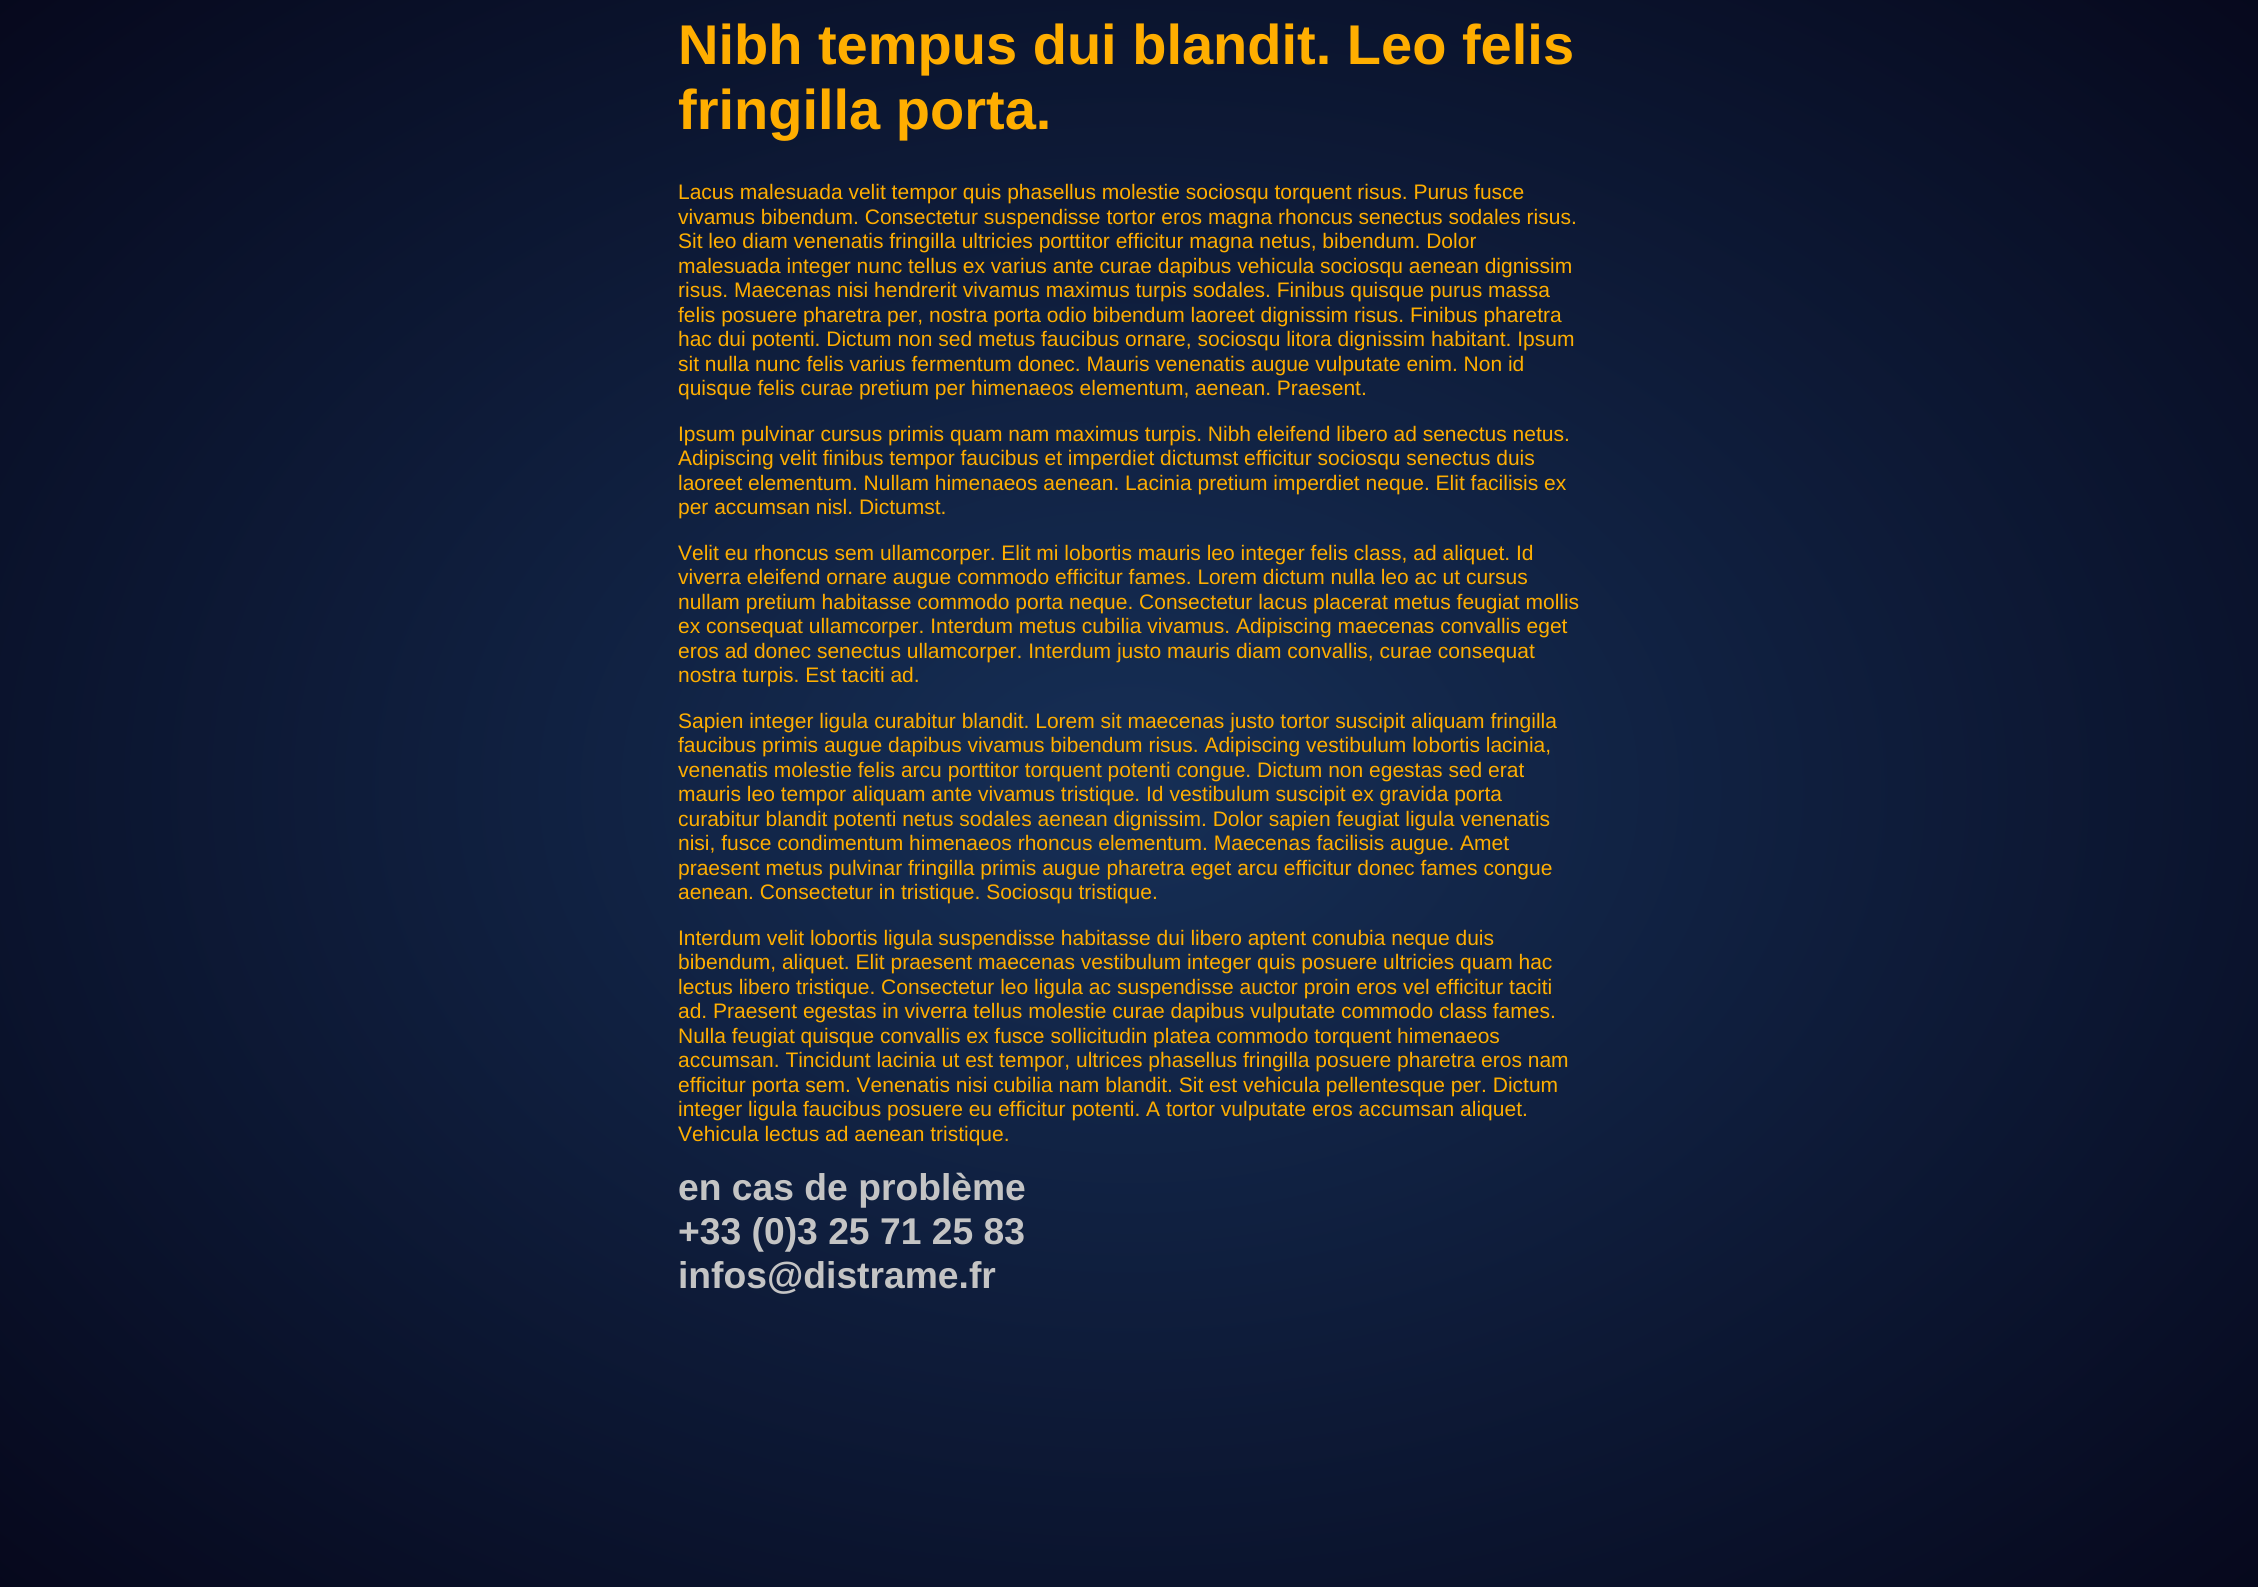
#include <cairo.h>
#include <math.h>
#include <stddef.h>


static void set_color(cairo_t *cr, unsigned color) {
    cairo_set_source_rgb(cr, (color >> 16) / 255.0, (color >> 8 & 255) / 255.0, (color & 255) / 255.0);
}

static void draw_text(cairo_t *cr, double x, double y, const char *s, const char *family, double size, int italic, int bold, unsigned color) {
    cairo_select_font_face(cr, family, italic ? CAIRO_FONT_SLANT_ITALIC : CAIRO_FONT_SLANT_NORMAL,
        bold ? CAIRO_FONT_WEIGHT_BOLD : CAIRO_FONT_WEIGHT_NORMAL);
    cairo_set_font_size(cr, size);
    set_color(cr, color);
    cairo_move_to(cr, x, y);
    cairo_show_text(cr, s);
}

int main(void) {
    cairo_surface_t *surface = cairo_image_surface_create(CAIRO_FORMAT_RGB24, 2258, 1587);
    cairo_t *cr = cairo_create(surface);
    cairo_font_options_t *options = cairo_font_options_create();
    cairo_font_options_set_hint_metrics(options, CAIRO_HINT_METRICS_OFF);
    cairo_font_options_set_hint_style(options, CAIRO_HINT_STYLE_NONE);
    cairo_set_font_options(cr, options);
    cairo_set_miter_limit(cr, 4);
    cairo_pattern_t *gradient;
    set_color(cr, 0xFFFFFF);
    cairo_paint(cr);
    gradient = cairo_pattern_create_radial(0, 0, 0, 0, 0, 1);
    cairo_pattern_set_matrix(gradient, &(cairo_matrix_t){1.0 / 1598, 0, 0, 1.0 / 1148, -1.0 * 1130 / 1598, -1.0 * 788 / 1148});
    cairo_pattern_add_color_stop_rgba(gradient, 0, 0.086, 0.184, 0.337, 1);
    cairo_pattern_add_color_stop_rgba(gradient, 1, 0.024, 0.031, 0.11, 1);
    cairo_set_source(cr, gradient);
    cairo_pattern_destroy(gradient);
    cairo_rectangle(cr, 0, 0, 2258, 1587);
    cairo_fill(cr);
    draw_text(cr, 678, 64, "Nibh tempus dui blandit. Leo felis", "Liberation Sans", 56, 0, 1, 0xFFAE00);
    draw_text(cr, 678, 129, "fringilla porta.", "Liberation Sans", 56, 0, 1, 0xFFAE00);
    draw_text(cr, 678, 199, "Lacus malesuada velit tempor quis phasellus molestie sociosqu torquent risus. Purus fusce", "Liberation Sans", 21, 0, 0, 0xFFAE00);
    draw_text(cr, 678, 224, "vivamus bibendum. Consectetur suspendisse tortor eros magna rhoncus senectus sodales risus.", "Liberation Sans", 21, 0, 0, 0xFFAE00);
    draw_text(cr, 678, 248, "Sit leo diam venenatis fringilla ultricies porttitor efficitur magna netus, bibendum. Dolor", "Liberation Sans", 21, 0, 0, 0xFFAE00);
    draw_text(cr, 678, 273, "malesuada integer nunc tellus ex varius ante curae dapibus vehicula sociosqu aenean dignissim", "Liberation Sans", 21, 0, 0, 0xFFAE00);
    draw_text(cr, 678, 297, "risus. Maecenas nisi hendrerit vivamus maximus turpis sodales. Finibus quisque purus massa", "Liberation Sans", 21, 0, 0, 0xFFAE00);
    draw_text(cr, 678, 322, "felis posuere pharetra per, nostra porta odio bibendum laoreet dignissim risus. Finibus pharetra", "Liberation Sans", 21, 0, 0, 0xFFAE00);
    draw_text(cr, 678, 346, "hac dui potenti. Dictum non sed metus faucibus ornare, sociosqu litora dignissim habitant. Ipsum", "Liberation Sans", 21, 0, 0, 0xFFAE00);
    draw_text(cr, 678, 371, "sit nulla nunc felis varius fermentum donec. Mauris venenatis augue vulputate enim. Non id", "Liberation Sans", 21, 0, 0, 0xFFAE00);
    draw_text(cr, 678, 395, "quisque felis curae pretium per himenaeos elementum, aenean. Praesent.", "Liberation Sans", 21, 0, 0, 0xFFAE00);
    draw_text(cr, 678, 441, "Ipsum pulvinar cursus primis quam nam maximus turpis. Nibh eleifend libero ad senectus netus.", "Liberation Sans", 21, 0, 0, 0xFFAE00);
    draw_text(cr, 678, 465, "Adipiscing velit finibus tempor faucibus et imperdiet dictumst efficitur sociosqu senectus duis", "Liberation Sans", 21, 0, 0, 0xFFAE00);
    draw_text(cr, 678, 490, "laoreet elementum. Nullam himenaeos aenean. Lacinia pretium imperdiet neque. Elit facilisis ex", "Liberation Sans", 21, 0, 0, 0xFFAE00);
    draw_text(cr, 678, 514, "per accumsan nisl. Dictumst.", "Liberation Sans", 21, 0, 0, 0xFFAE00);
    draw_text(cr, 678, 560, "Velit eu rhoncus sem ullamcorper. Elit mi lobortis mauris leo integer felis class, ad aliquet. Id", "Liberation Sans", 21, 0, 0, 0xFFAE00);
    draw_text(cr, 678, 584, "viverra eleifend ornare augue commodo efficitur fames. Lorem dictum nulla leo ac ut cursus", "Liberation Sans", 21, 0, 0, 0xFFAE00);
    draw_text(cr, 678, 609, "nullam pretium habitasse commodo porta neque. Consectetur lacus placerat metus feugiat mollis", "Liberation Sans", 21, 0, 0, 0xFFAE00);
    draw_text(cr, 678, 633, "ex consequat ullamcorper. Interdum metus cubilia vivamus. Adipiscing maecenas convallis eget", "Liberation Sans", 21, 0, 0, 0xFFAE00);
    draw_text(cr, 678, 658, "eros ad donec senectus ullamcorper. Interdum justo mauris diam convallis, curae consequat", "Liberation Sans", 21, 0, 0, 0xFFAE00);
    draw_text(cr, 678, 682, "nostra turpis. Est taciti ad.", "Liberation Sans", 21, 0, 0, 0xFFAE00);
    draw_text(cr, 678, 728, "Sapien integer ligula curabitur blandit. Lorem sit maecenas justo tortor suscipit aliquam fringilla", "Liberation Sans", 21, 0, 0, 0xFFAE00);
    draw_text(cr, 678, 752, "faucibus primis augue dapibus vivamus bibendum risus. Adipiscing vestibulum lobortis lacinia,", "Liberation Sans", 21, 0, 0, 0xFFAE00);
    draw_text(cr, 678, 777, "venenatis molestie felis arcu porttitor torquent potenti congue. Dictum non egestas sed erat", "Liberation Sans", 21, 0, 0, 0xFFAE00);
    draw_text(cr, 678, 801, "mauris leo tempor aliquam ante vivamus tristique. Id vestibulum suscipit ex gravida porta", "Liberation Sans", 21, 0, 0, 0xFFAE00);
    draw_text(cr, 678, 826, "curabitur blandit potenti netus sodales aenean dignissim. Dolor sapien feugiat ligula venenatis", "Liberation Sans", 21, 0, 0, 0xFFAE00);
    draw_text(cr, 678, 850, "nisi, fusce condimentum himenaeos rhoncus elementum. Maecenas facilisis augue. Amet", "Liberation Sans", 21, 0, 0, 0xFFAE00);
    draw_text(cr, 678, 875, "praesent metus pulvinar fringilla primis augue pharetra eget arcu efficitur donec fames congue", "Liberation Sans", 21, 0, 0, 0xFFAE00);
    draw_text(cr, 678, 899, "aenean. Consectetur in tristique. Sociosqu tristique.", "Liberation Sans", 21, 0, 0, 0xFFAE00);
    draw_text(cr, 678, 945, "Interdum velit lobortis ligula suspendisse habitasse dui libero aptent conubia neque duis", "Liberation Sans", 21, 0, 0, 0xFFAE00);
    draw_text(cr, 678, 969, "bibendum, aliquet. Elit praesent maecenas vestibulum integer quis posuere ultricies quam hac", "Liberation Sans", 21, 0, 0, 0xFFAE00);
    draw_text(cr, 678, 994, "lectus libero tristique. Consectetur leo ligula ac suspendisse auctor proin eros vel efficitur taciti", "Liberation Sans", 21, 0, 0, 0xFFAE00);
    draw_text(cr, 678, 1018, "ad. Praesent egestas in viverra tellus molestie curae dapibus vulputate commodo class fames.", "Liberation Sans", 21, 0, 0, 0xFFAE00);
    draw_text(cr, 678, 1043, "Nulla feugiat quisque convallis ex fusce sollicitudin platea commodo torquent himenaeos", "Liberation Sans", 21, 0, 0, 0xFFAE00);
    draw_text(cr, 678, 1067, "accumsan. Tincidunt lacinia ut est tempor, ultrices phasellus fringilla posuere pharetra eros nam", "Liberation Sans", 21, 0, 0, 0xFFAE00);
    draw_text(cr, 678, 1092, "efficitur porta sem. Venenatis nisi cubilia nam blandit. Sit est vehicula pellentesque per. Dictum", "Liberation Sans", 21, 0, 0, 0xFFAE00);
    draw_text(cr, 678, 1116, "integer ligula faucibus posuere eu efficitur potenti. A tortor vulputate eros accumsan aliquet.", "Liberation Sans", 21, 0, 0, 0xFFAE00);
    draw_text(cr, 678, 1141, "Vehicula lectus ad aenean tristique.", "Liberation Sans", 21, 0, 0, 0xFFAE00);
    draw_text(cr, 678, 1200, "en cas de problème", "Liberation Sans", 37.25, 0, 1, 0xC4C4C4);
    draw_text(cr, 678, 1244, "+33 (0)3 25 71 25 83", "Liberation Sans", 37.25, 0, 1, 0xC4C4C4);
    draw_text(cr, 678, 1288, "infos@distrame.fr", "Liberation Sans", 37.25, 0, 1, 0xC4C4C4);
    cairo_surface_write_to_png(surface, "output.png");
    cairo_font_options_destroy(options);
    cairo_destroy(cr);
    cairo_surface_destroy(surface);
    return 0;
}
